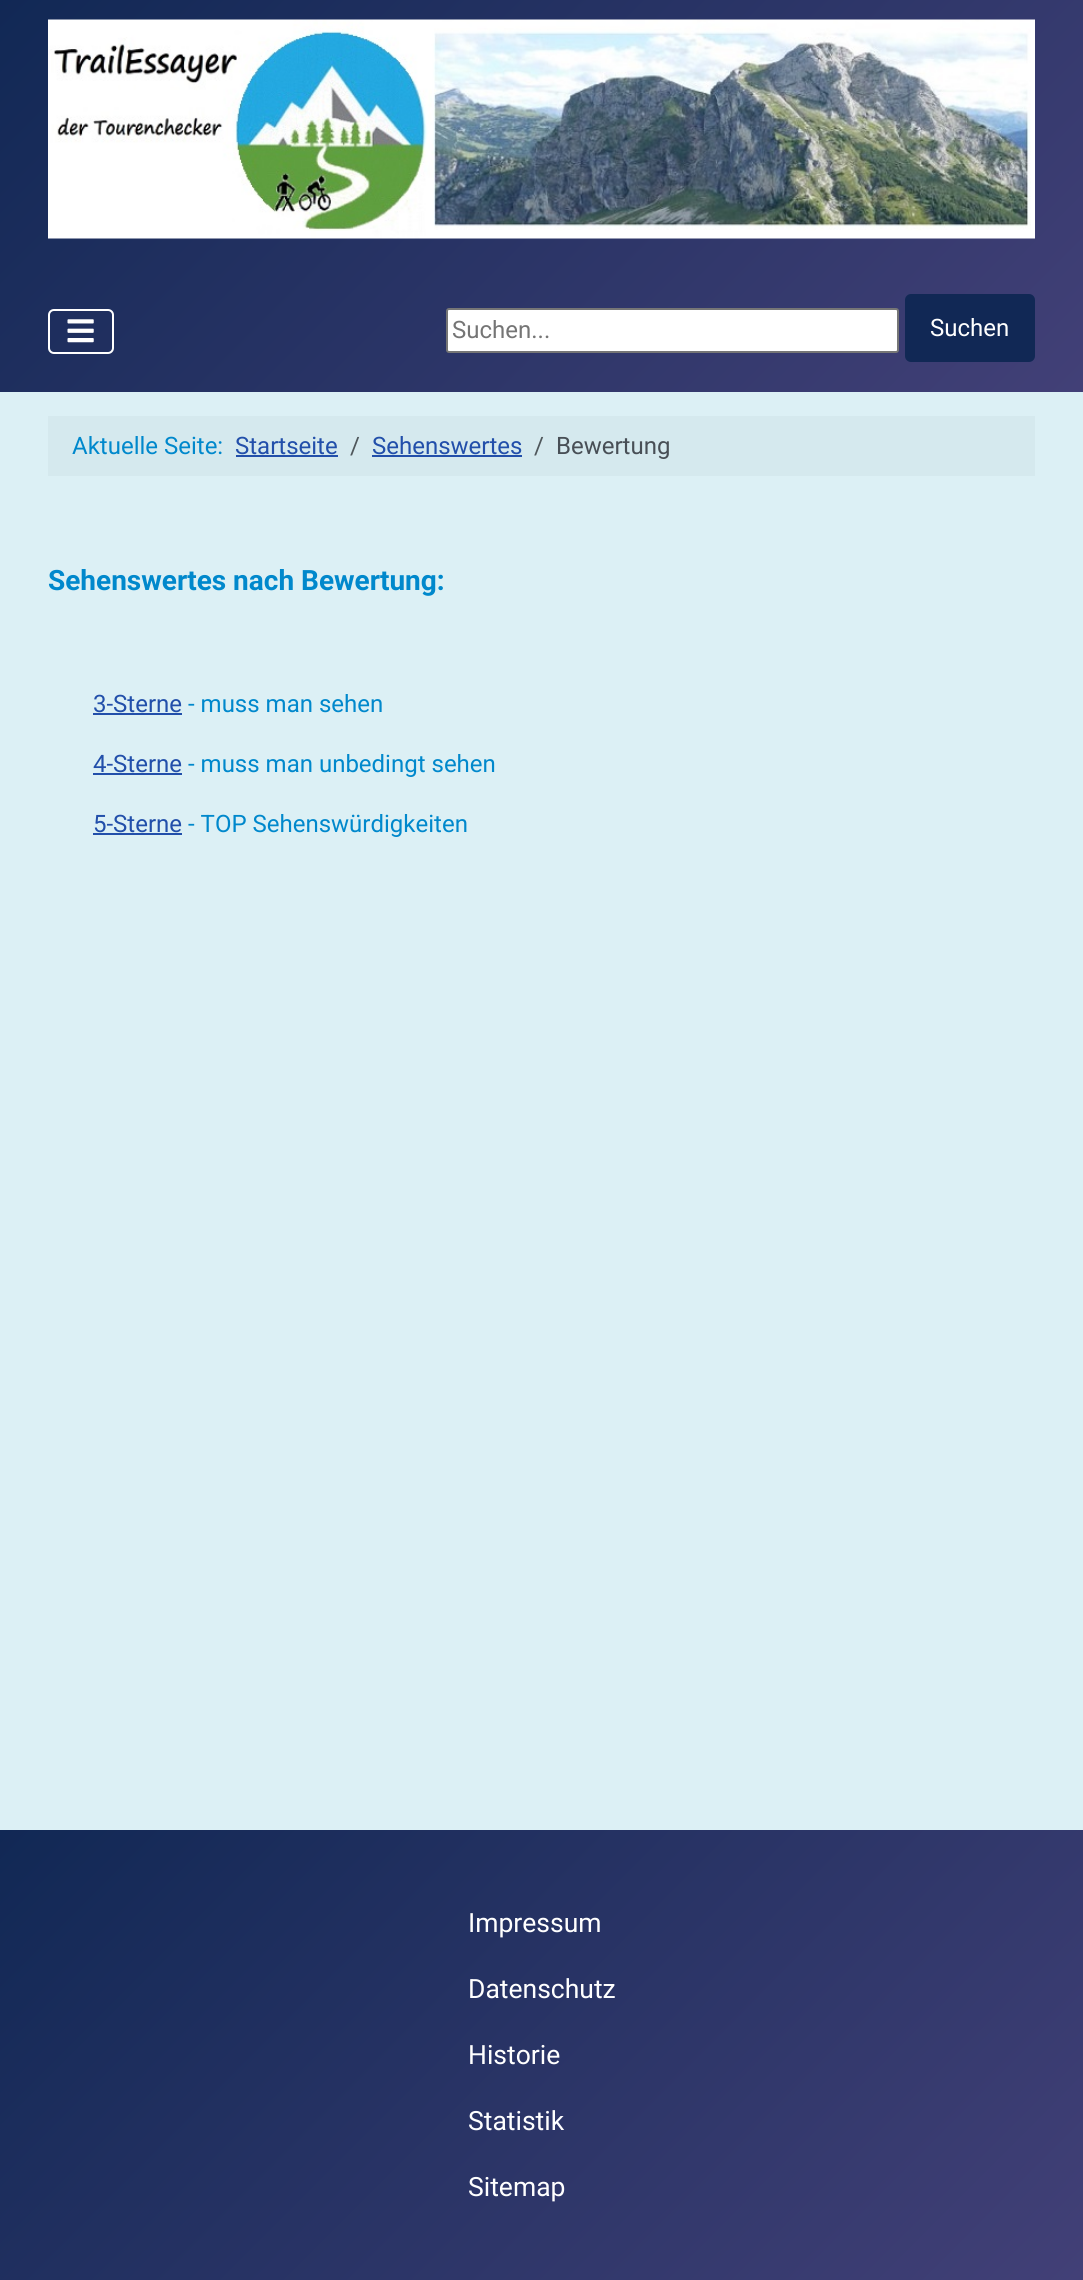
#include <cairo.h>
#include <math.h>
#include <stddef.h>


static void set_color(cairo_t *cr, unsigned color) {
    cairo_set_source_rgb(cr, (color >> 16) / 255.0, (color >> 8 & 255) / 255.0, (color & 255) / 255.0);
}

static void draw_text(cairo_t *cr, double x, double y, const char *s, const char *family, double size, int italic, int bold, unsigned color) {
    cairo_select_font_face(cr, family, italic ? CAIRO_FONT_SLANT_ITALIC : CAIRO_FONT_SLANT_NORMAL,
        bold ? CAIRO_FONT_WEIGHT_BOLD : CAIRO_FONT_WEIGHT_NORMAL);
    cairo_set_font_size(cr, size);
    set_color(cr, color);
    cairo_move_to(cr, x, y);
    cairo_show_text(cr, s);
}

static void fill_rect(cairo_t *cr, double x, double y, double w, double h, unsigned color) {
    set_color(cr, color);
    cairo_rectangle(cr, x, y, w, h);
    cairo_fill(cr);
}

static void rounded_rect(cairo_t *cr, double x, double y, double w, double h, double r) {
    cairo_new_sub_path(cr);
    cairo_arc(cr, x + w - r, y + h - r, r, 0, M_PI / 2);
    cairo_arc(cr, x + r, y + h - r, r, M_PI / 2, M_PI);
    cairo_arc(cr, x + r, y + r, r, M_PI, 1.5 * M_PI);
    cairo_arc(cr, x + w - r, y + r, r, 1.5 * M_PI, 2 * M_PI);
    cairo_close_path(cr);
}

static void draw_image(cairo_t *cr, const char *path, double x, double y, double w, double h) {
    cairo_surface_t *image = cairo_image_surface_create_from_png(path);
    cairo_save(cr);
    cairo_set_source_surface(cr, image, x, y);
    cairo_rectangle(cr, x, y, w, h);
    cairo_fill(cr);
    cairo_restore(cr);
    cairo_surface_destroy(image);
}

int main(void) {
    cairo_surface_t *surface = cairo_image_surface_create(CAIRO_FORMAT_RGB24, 1083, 2280);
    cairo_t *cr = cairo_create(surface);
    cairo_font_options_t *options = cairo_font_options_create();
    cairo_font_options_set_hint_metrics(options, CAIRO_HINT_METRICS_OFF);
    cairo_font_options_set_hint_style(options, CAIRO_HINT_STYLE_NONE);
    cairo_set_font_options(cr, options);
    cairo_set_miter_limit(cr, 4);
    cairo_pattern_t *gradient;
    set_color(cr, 0xDCF0F5);
    cairo_paint(cr);
    gradient = cairo_pattern_create_linear(173, -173, 910, 564);
    cairo_pattern_add_color_stop_rgba(gradient, 0, 0.067, 0.157, 0.333, 1);
    cairo_pattern_add_color_stop_rgba(gradient, 1, 0.259, 0.251, 0.467, 1);
    cairo_set_source(cr, gradient);
    cairo_pattern_destroy(gradient);
    cairo_rectangle(cr, 0, 0, 1083, 392);
    cairo_fill(cr);
    draw_image(cr, "assets/img1.png", 48, 19, 987, 220);
    rounded_rect(cr, 49, 310, 64, 43, 5);
    set_color(cr, 0xFFFFFF);
    cairo_stroke(cr);
    draw_image(cr, "assets/img2.png", 67, 319, 27, 24);
    rounded_rect(cr, 447, 309, 451, 43, 2);
    cairo_fill_preserve(cr);
    set_color(cr, 0x767676);
    cairo_stroke(cr);
    draw_text(cr, 452, 338, "Suchen...", "Roboto", 24, 0, 0, 0x757575);
    set_color(cr, 0x112855);
    rounded_rect(cr, 906, 295, 128, 66, 5);
    cairo_fill_preserve(cr);
    cairo_stroke(cr);
    draw_text(cr, 930, 336, "Suchen", "Roboto", 24, 0, 0, 0xFFFFFF);
    fill_rect(cr, 48, 416, 987, 60, 0xD5E9EE);
    draw_text(cr, 72, 454, "Aktuelle Seite:", "Roboto", 24, 0, 0, 0x0088CC);
    draw_text(cr, 235, 454, "Startseite", "Roboto", 24, 0, 0, 0x224FAA);
    fill_rect(cr, 236, 455, 102, 2, 0x224FAA);
    draw_text(cr, 350, 454, "/", "Roboto", 24, 0, 0, 0x4F575B);
    draw_text(cr, 372, 454, "Sehenswertes", "Roboto", 24, 0, 0, 0x224FAA);
    fill_rect(cr, 372, 455, 150, 2, 0x224FAA);
    draw_text(cr, 534, 454, "/", "Roboto", 24, 0, 0, 0x4F575B);
    draw_text(cr, 556, 454, "Bewertung", "Roboto", 24, 0, 0, 0x484F56);
    draw_text(cr, 48, 590, "Sehenswertes nach Bewertung:", "Roboto", 28, 0, 1, 0x0088CC);
    draw_text(cr, 93, 712, "3-Sterne", "Roboto", 24, 0, 0, 0x224FAA);
    fill_rect(cr, 93, 713, 89, 2, 0x224FAA);
    draw_text(cr, 188, 712, "- muss man sehen", "Roboto", 24, 0, 0, 0x0088CC);
    draw_text(cr, 93, 772, "4-Sterne", "Roboto", 24, 0, 0, 0x224FAA);
    fill_rect(cr, 93, 773, 89, 2, 0x224FAA);
    draw_text(cr, 188, 772, "- muss man unbedingt sehen", "Roboto", 24, 0, 0, 0x0088CC);
    draw_text(cr, 93, 832, "5-Sterne", "Roboto", 24, 0, 0, 0x224FAA);
    fill_rect(cr, 93, 833, 89, 2, 0x224FAA);
    draw_text(cr, 188, 832, "- TOP Sehenswürdigkeiten", "Roboto", 24, 0, 0, 0x0088CC);
    gradient = cairo_pattern_create_linear(158, 1672, 925, 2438);
    cairo_pattern_add_color_stop_rgba(gradient, 0, 0.067, 0.157, 0.333, 1);
    cairo_pattern_add_color_stop_rgba(gradient, 1, 0.259, 0.251, 0.467, 1);
    cairo_set_source(cr, gradient);
    cairo_pattern_destroy(gradient);
    cairo_rectangle(cr, 0, 1830, 1083, 450);
    cairo_fill(cr);
    draw_text(cr, 468, 1932, "Impressum", "Roboto", 26.5, 0, 0, 0xFFFFFF);
    draw_text(cr, 468, 1998, "Datenschutz", "Roboto", 26.5, 0, 0, 0xFFFFFF);
    draw_text(cr, 468, 2064, "Historie", "Roboto", 26.5, 0, 0, 0xFFFFFF);
    draw_text(cr, 468, 2130, "Statistik", "Roboto", 26.5, 0, 0, 0xFFFFFF);
    draw_text(cr, 468, 2196, "Sitemap", "Roboto", 26.5, 0, 0, 0xFFFFFF);
    cairo_surface_write_to_png(surface, "output.png");
    cairo_font_options_destroy(options);
    cairo_destroy(cr);
    cairo_surface_destroy(surface);
    return 0;
}
